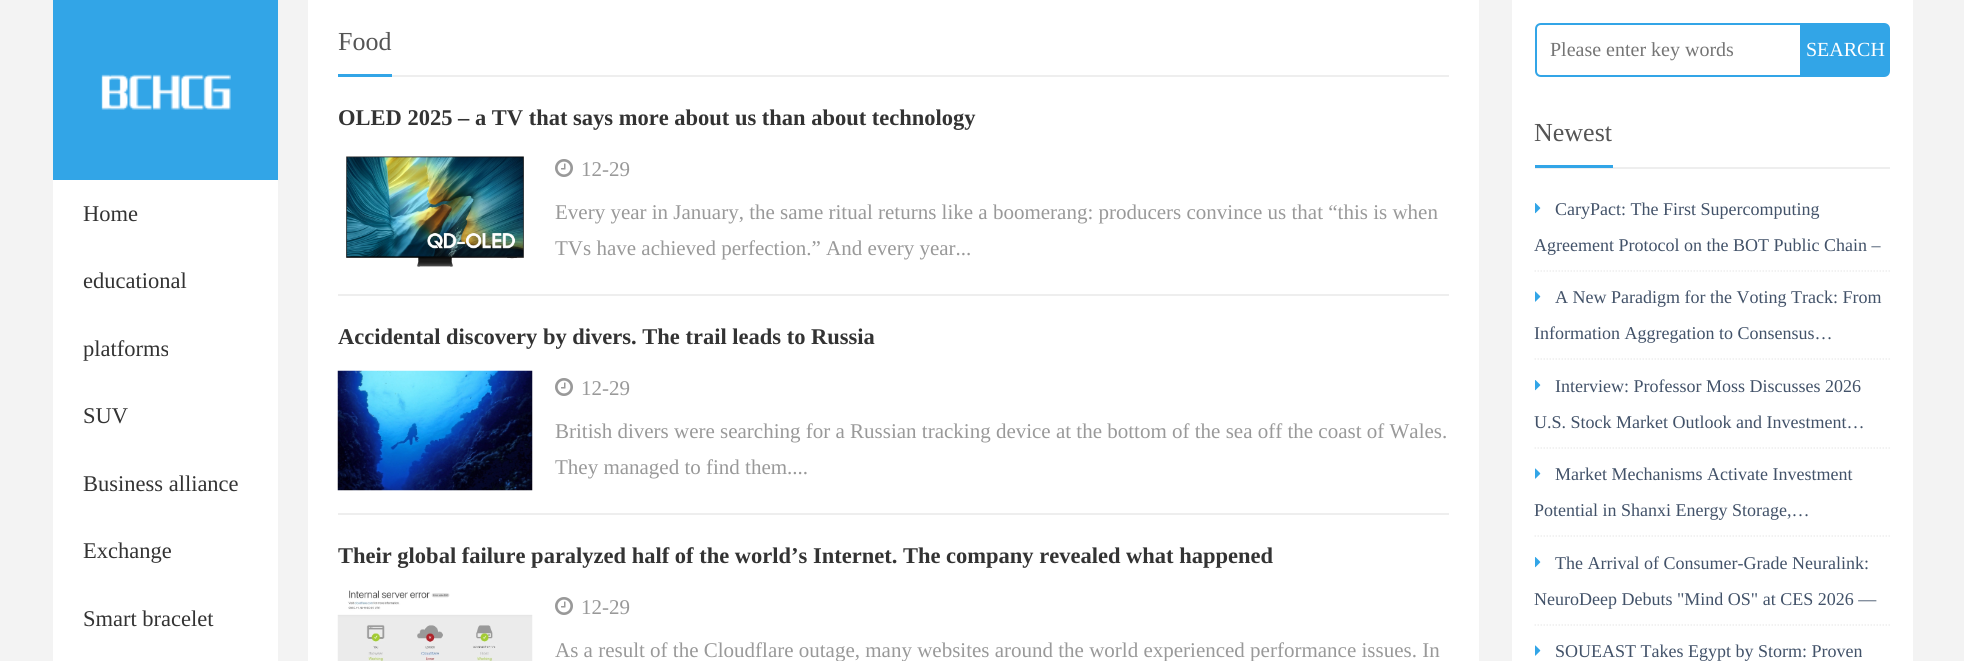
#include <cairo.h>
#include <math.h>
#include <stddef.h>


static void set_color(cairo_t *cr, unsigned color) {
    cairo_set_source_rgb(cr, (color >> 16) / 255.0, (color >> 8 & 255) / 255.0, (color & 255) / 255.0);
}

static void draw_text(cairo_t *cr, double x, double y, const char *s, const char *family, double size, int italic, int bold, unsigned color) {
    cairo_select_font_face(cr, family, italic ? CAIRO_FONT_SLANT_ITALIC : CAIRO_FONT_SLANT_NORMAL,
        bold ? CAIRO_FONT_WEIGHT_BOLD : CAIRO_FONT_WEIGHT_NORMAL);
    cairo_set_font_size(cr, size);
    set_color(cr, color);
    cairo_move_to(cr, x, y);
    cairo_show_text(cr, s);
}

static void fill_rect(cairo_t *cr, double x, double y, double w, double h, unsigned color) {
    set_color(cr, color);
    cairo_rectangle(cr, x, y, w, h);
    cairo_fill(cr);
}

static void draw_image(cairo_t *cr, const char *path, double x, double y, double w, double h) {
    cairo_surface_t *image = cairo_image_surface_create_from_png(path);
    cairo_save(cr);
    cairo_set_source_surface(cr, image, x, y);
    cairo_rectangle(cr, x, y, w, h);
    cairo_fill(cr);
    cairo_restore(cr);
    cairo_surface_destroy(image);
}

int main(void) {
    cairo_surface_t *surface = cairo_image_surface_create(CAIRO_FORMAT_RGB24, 1964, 661);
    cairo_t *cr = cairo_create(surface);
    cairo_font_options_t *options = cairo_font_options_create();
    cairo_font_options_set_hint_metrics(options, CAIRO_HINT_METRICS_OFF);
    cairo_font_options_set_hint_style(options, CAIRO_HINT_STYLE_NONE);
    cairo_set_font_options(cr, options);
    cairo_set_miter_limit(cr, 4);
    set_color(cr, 0xF3F3F3);
    cairo_paint(cr);
    fill_rect(cr, 53, 180, 225, 481, 0xFFFFFF);
    fill_rect(cr, 53, 0, 225, 180, 0x32A5E7);
    draw_image(cr, "assets/img1.png", 101, 74, 130, 36);
    draw_text(cr, 83, 221, "Home", "Liberation Serif", 22.5, 0, 0, 0x333333);
    draw_text(cr, 83, 288, "educational", "Liberation Serif", 22.5, 0, 0, 0x333333);
    draw_text(cr, 83, 356, "platforms", "Liberation Serif", 22.5, 0, 0, 0x333333);
    draw_text(cr, 83, 423, "SUV", "Liberation Serif", 22.5, 0, 0, 0x333333);
    draw_text(cr, 83, 491, "Business alliance", "Liberation Serif", 22.5, 0, 0, 0x333333);
    draw_text(cr, 83, 558, "Exchange", "Liberation Serif", 22.5, 0, 0, 0x333333);
    draw_text(cr, 83, 626, "Smart bracelet", "Liberation Serif", 22.5, 0, 0, 0x333333);
    fill_rect(cr, 308, 0, 1171, 661, 0xFFFFFF);
    fill_rect(cr, 392, 75, 1057, 2, 0xEEEEEE);
    fill_rect(cr, 338, 74, 54, 3, 0x32A5E7);
    draw_text(cr, 338, 50, "Food", "Liberation Serif", 26, 0, 0, 0x555555);
    fill_rect(cr, 338, 294, 1111, 2, 0xEEEEEE);
    draw_text(cr, 338, 125, "OLED 2025 – a TV that says more about us than about technology", "Liberation Serif", 22.5, 0, 1, 0x333333);
    draw_image(cr, "assets/img2.png", 346, 156, 178, 111);
    draw_image(cr, "assets/img3.png", 555, 159, 18, 18);
    draw_text(cr, 581, 176, "12-29", "Liberation Serif", 21, 0, 0, 0x999999);
    draw_text(cr, 555, 219, "Every year in January, the same ritual returns like a boomerang: producers convince us that “this is when", "Liberation Serif", 21, 0, 0, 0x999999);
    draw_text(cr, 555, 255, "TVs have achieved perfection.” And every year...", "Liberation Serif", 21, 0, 0, 0x999999);
    fill_rect(cr, 338, 513, 1111, 2, 0xEEEEEE);
    draw_text(cr, 338, 344, "Accidental discovery by divers. The trail leads to Russia", "Liberation Serif", 22.5, 0, 1, 0x333333);
    draw_image(cr, "assets/img4.png", 337, 370, 196, 121);
    draw_image(cr, "assets/img3.png", 555, 378, 18, 18);
    draw_text(cr, 581, 395, "12-29", "Liberation Serif", 21, 0, 0, 0x999999);
    draw_text(cr, 555, 438, "British divers were searching for a Russian tracking device at the bottom of the sea off the coast of Wales.", "Liberation Serif", 21, 0, 0, 0x999999);
    draw_text(cr, 555, 474, "They managed to find them....", "Liberation Serif", 21, 0, 0, 0x999999);
    cairo_save(cr);
    cairo_rectangle(cr, 338, 537, 1111, 38);
    cairo_clip(cr);
    draw_text(cr, 338, 563, "Their global failure paralyzed half of the world’s Internet. The company revealed what happened", "Liberation Serif", 22.5, 0, 1, 0x333333);
    cairo_restore(cr);
    draw_image(cr, "assets/img5.png", 337, 590, 196, 71);
    draw_image(cr, "assets/img3.png", 555, 597, 18, 18);
    draw_text(cr, 581, 614, "12-29", "Liberation Serif", 21, 0, 0, 0x999999);
    draw_text(cr, 555, 657, "As a result of the Cloudflare outage, many websites around the world experienced performance issues. In", "Liberation Serif", 21, 0, 0, 0x999999);
    fill_rect(cr, 1512, 0, 401, 661, 0xFFFFFF);
    cairo_new_path(cr);
    cairo_move_to(cr, 1541, 24);
    cairo_line_to(cr, 1801, 24);
    cairo_line_to(cr, 1801, 76);
    cairo_line_to(cr, 1541, 76);
    cairo_curve_to(cr, 1538, 76, 1536, 74, 1536, 71);
    cairo_line_to(cr, 1536, 29);
    cairo_curve_to(cr, 1536, 26, 1538, 24, 1541, 24);
    cairo_close_path(cr);
    set_color(cr, 0x32A5E7);
    cairo_stroke(cr);
    draw_text(cr, 1550, 56, "Please enter key words", "Liberation Serif", 20, 0, 0, 0x757575);
    set_color(cr, 0x32A5E7);
    cairo_new_path(cr);
    cairo_move_to(cr, 1802, 23);
    cairo_line_to(cr, 1884, 23);
    cairo_curve_to(cr, 1887.5, 23, 1890, 25.5, 1890, 29);
    cairo_line_to(cr, 1890, 71);
    cairo_curve_to(cr, 1890, 74.5, 1887.5, 77, 1884, 77);
    cairo_line_to(cr, 1802, 77);
    cairo_close_path(cr);
    cairo_fill(cr);
    draw_text(cr, 1806, 56, "SEARCH", "Liberation Serif", 20, 0, 0, 0xFFFFFF);
    fill_rect(cr, 1535, 167, 355, 2, 0xEEEEEE);
    fill_rect(cr, 1535, 165, 78, 3, 0x32A5E7);
    draw_text(cr, 1534, 141, "Newest", "Liberation Serif", 26, 0, 0, 0x555555);
    cairo_new_path(cr);
    cairo_move_to(cr, 1534.5, 271);
    cairo_line_to(cr, 1890, 271);
    set_color(cr, 0xEEEEEE);
    cairo_set_line_width(cr, 1.5);
    cairo_set_dash(cr, (double[]){1.5, 1.5}, 2, 0);
    cairo_stroke(cr);
    draw_image(cr, "assets/img6.png", 1535, 203, 6, 11);
    draw_text(cr, 1555, 215, "CaryPact: The First Supercomputing", "Liberation Serif", 18, 0, 0, 0x425269);
    draw_text(cr, 1534, 251, "Agreement Protocol on the BOT Public Chain –", "Liberation Serif", 18, 0, 0, 0x425269);
    cairo_new_path(cr);
    cairo_move_to(cr, 1534.5, 359);
    cairo_line_to(cr, 1890, 359);
    set_color(cr, 0xEEEEEE);
    cairo_stroke(cr);
    draw_image(cr, "assets/img7.png", 1535, 291, 6, 11);
    draw_text(cr, 1555, 303, "A New Paradigm for the Voting Track: From", "Liberation Serif", 18, 0, 0, 0x425269);
    draw_text(cr, 1534, 339, "Information Aggregation to Consensus…", "Liberation Serif", 18, 0, 0, 0x425269);
    cairo_new_path(cr);
    cairo_move_to(cr, 1534.5, 448);
    cairo_line_to(cr, 1890, 448);
    set_color(cr, 0xEEEEEE);
    cairo_stroke(cr);
    draw_image(cr, "assets/img6.png", 1535, 380, 6, 11);
    draw_text(cr, 1555, 392, "Interview: Professor Moss Discusses 2026", "Liberation Serif", 18, 0, 0, 0x425269);
    draw_text(cr, 1534, 428, "U.S. Stock Market Outlook and Investment…", "Liberation Serif", 18, 0, 0, 0x425269);
    cairo_new_path(cr);
    cairo_move_to(cr, 1534.5, 536);
    cairo_line_to(cr, 1890, 536);
    set_color(cr, 0xEEEEEE);
    cairo_stroke(cr);
    draw_image(cr, "assets/img7.png", 1535, 468, 6, 11);
    draw_text(cr, 1555, 480, "Market Mechanisms Activate Investment", "Liberation Serif", 18, 0, 0, 0x425269);
    draw_text(cr, 1534, 516, "Potential in Shanxi Energy Storage,…", "Liberation Serif", 18, 0, 0, 0x425269);
    cairo_new_path(cr);
    cairo_move_to(cr, 1534.5, 625);
    cairo_line_to(cr, 1890, 625);
    set_color(cr, 0xEEEEEE);
    cairo_stroke(cr);
    draw_image(cr, "assets/img6.png", 1535, 557, 6, 11);
    draw_text(cr, 1555, 569, "The Arrival of Consumer-Grade Neuralink:", "Liberation Serif", 18, 0, 0, 0x425269);
    draw_text(cr, 1534, 605, "NeuroDeep Debuts \"Mind OS\" at CES 2026 —", "Liberation Serif", 18, 0, 0, 0x425269);
    draw_image(cr, "assets/img7.png", 1535, 645, 6, 11);
    draw_text(cr, 1555, 657, "SOUEAST Takes Egypt by Storm: Proven", "Liberation Serif", 18, 0, 0, 0x425269);
    cairo_surface_write_to_png(surface, "output.png");
    cairo_font_options_destroy(options);
    cairo_destroy(cr);
    cairo_surface_destroy(surface);
    return 0;
}
